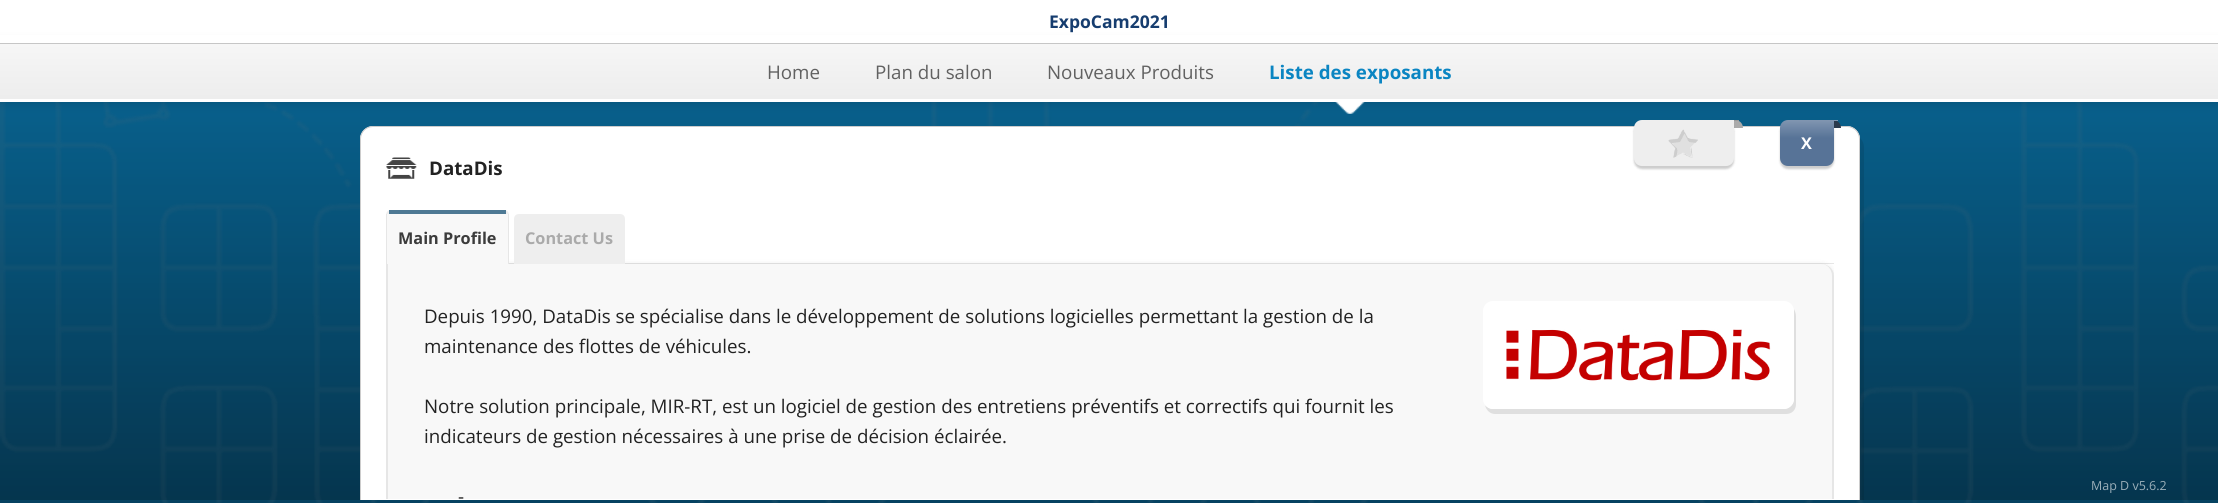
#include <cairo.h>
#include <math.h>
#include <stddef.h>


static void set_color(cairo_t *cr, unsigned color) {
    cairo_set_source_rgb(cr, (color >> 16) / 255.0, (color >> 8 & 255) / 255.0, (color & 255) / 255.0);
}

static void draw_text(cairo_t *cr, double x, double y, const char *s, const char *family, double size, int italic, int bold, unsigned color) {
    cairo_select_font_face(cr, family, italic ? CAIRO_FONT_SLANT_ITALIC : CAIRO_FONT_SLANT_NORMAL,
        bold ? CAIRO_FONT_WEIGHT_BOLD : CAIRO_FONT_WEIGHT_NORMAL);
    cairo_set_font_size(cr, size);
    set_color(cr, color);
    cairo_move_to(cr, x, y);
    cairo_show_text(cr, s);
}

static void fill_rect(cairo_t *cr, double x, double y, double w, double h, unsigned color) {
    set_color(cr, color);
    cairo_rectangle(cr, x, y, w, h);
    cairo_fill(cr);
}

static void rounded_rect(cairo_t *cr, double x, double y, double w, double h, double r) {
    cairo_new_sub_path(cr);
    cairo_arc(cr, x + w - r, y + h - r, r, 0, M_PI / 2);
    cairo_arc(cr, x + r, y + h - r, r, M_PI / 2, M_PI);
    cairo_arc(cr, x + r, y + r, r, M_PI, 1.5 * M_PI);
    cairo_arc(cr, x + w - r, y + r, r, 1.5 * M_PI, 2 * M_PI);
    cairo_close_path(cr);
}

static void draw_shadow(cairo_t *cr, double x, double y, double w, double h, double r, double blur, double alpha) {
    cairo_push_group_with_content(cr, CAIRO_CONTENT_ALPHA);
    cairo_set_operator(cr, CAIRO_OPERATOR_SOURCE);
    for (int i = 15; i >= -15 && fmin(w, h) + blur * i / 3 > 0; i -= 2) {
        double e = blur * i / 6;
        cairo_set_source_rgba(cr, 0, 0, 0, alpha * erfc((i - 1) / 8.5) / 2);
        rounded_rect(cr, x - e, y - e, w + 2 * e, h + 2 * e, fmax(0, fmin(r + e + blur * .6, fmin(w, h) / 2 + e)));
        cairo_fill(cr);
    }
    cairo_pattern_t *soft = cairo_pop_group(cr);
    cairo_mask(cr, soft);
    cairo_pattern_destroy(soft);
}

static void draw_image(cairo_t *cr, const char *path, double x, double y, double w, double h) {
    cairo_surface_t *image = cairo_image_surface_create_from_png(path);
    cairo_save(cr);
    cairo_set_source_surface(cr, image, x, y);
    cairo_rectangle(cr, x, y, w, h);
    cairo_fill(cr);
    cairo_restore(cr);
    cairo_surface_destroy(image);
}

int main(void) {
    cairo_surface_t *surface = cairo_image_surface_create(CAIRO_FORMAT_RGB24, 2218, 503);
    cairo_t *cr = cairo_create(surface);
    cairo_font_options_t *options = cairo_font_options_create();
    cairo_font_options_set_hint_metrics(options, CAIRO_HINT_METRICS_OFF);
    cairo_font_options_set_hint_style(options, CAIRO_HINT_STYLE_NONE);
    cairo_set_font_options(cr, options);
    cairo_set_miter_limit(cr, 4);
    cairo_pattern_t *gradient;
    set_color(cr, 0xFFFFFF);
    cairo_paint(cr);
    gradient = cairo_pattern_create_linear(1109, 0, 1109, 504);
    cairo_pattern_add_color_stop_rgba(gradient, 0, 0.043, 0.522, 0.761, 1);
    cairo_pattern_add_color_stop_rgba(gradient, 1, 0.024, 0.259, 0.38, 1);
    cairo_set_source(cr, gradient);
    cairo_pattern_destroy(gradient);
    cairo_rectangle(cr, 0, 102, 2218, 401);
    cairo_fill(cr);
    draw_image(cr, "assets/img5.png", 0, 102, 2218, 401);
    cairo_set_source_rgba(cr, 0, 0, 0, 0.2);
    cairo_rectangle(cr, 0, 102, 2218, 398);
    cairo_fill(cr);
    set_color(cr, 0x000000);
    draw_shadow(cr, 0, 44, 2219, 57, 0, 5.5, 0.2);
    fill_rect(cr, 0, 35, 2218, 8, 0xFFFFFF);
    fill_rect(cr, 0, 43, 2218, 1, 0xC6C6C6);
    draw_text(cr, 1049, 28, "ExpoCam2021", "Open Sans", 17.5, 0, 1, 0x163D6F);
    gradient = cairo_pattern_create_linear(1109, 44, 1109, 99);
    cairo_pattern_add_color_stop_rgba(gradient, 0, 0.965, 0.965, 0.965, 1);
    cairo_pattern_add_color_stop_rgba(gradient, 1, 0.929, 0.929, 0.929, 1);
    cairo_set_source(cr, gradient);
    cairo_pattern_destroy(gradient);
    cairo_rectangle(cr, 0, 44, 2218, 55);
    cairo_fill(cr);
    fill_rect(cr, 0, 99, 2218, 3, 0xFFFFFF);
    draw_text(cr, 767, 79, "Home", "Open Sans", 18.75, 0, 0, 0x616161);
    draw_text(cr, 875, 79, "Plan du salon", "Open Sans", 18.75, 0, 0, 0x616161);
    draw_text(cr, 1047, 79, "Nouveaux Produits", "Open Sans", 18.75, 0, 0, 0x616161);
    draw_text(cr, 1269, 79, "Liste des exposants", "Open Sans", 18.75, 0, 1, 0x0B85C2);
    draw_image(cr, "assets/img1.png", 1335, 102, 30, 12);
    cairo_save(cr);
    cairo_rectangle(cr, 0, 101, 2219, 399);
    cairo_clip(cr);
    cairo_set_source_rgba(cr, 0, 0, 0, 0.1);
    cairo_new_path(cr);
    cairo_move_to(cr, 364, 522);
    cairo_curve_to(cr, 365, 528, 370, 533, 377, 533);
    cairo_line_to(cr, 1851, 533);
    cairo_curve_to(cr, 1858, 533, 1864, 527, 1864, 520);
    cairo_line_to(cr, 1864, 147);
    cairo_curve_to(cr, 1864, 143, 1862, 140, 1860, 138);
    cairo_line_to(cr, 1860, 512);
    cairo_curve_to(cr, 1860, 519, 1854, 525, 1848, 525);
    cairo_line_to(cr, 372, 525);
    cairo_curve_to(cr, 369, 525, 366, 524, 364, 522);
    cairo_close_path(cr);
    cairo_fill(cr);
    cairo_restore(cr);
    set_color(cr, 0xFFFFFF);
    cairo_new_path(cr);
    cairo_move_to(cr, 373, 126);
    cairo_line_to(cr, 1847, 126);
    cairo_curve_to(cr, 1854, 126, 1860, 132, 1860, 139);
    cairo_line_to(cr, 1860, 500);
    cairo_line_to(cr, 360, 500);
    cairo_line_to(cr, 360, 139);
    cairo_curve_to(cr, 360, 132, 366, 126, 373, 126);
    cairo_close_path(cr);
    cairo_fill(cr);
    cairo_save(cr);
    cairo_rectangle(cr, 0, 101, 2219, 399);
    cairo_clip(cr);
    rounded_rect(cr, 360.5, 126.5, 1499, 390, 12.5);
    set_color(cr, 0xCCCCCC);
    cairo_set_line_width(cr, 1);
    cairo_stroke(cr);
    cairo_restore(cr);
    set_color(cr, 0xAAAAAA);
    cairo_new_path(cr);
    cairo_move_to(cr, 1734, 120);
    cairo_line_to(cr, 1735, 120);
    cairo_curve_to(cr, 1739.5, 120, 1743, 123.5, 1743, 128);
    cairo_line_to(cr, 1734, 128);
    cairo_close_path(cr);
    cairo_fill(cr);
    fill_rect(cr, 1734, 120, 5, 1, 0x999999);
    set_color(cr, 0x000000);
    draw_shadow(cr, 1634, 123, 100, 46, 8, 1, 0.2);
    set_color(cr, 0xEEEEEE);
    cairo_new_path(cr);
    cairo_move_to(cr, 1642, 120);
    cairo_line_to(cr, 1734, 120);
    cairo_line_to(cr, 1734, 158);
    cairo_curve_to(cr, 1734, 162.5, 1730.5, 166, 1726, 166);
    cairo_line_to(cr, 1642, 166);
    cairo_curve_to(cr, 1637.5, 166, 1634, 162.5, 1634, 158);
    cairo_line_to(cr, 1634, 128);
    cairo_curve_to(cr, 1634, 123.5, 1637.5, 120, 1642, 120);
    cairo_close_path(cr);
    cairo_fill(cr);
    draw_image(cr, "assets/img2.png", 1668, 129, 30, 29);
    set_color(cr, 0x2B3A4C);
    cairo_new_path(cr);
    cairo_move_to(cr, 1833, 120);
    cairo_curve_to(cr, 1837.5, 120, 1841, 123.5, 1841, 128);
    cairo_line_to(cr, 1833, 128);
    cairo_close_path(cr);
    cairo_fill(cr);
    fill_rect(cr, 1833, 120, 5, 1, 0x8196B1);
    set_color(cr, 0x000000);
    draw_shadow(cr, 1780, 123, 54, 46, 8, 1, 0.2);
    gradient = cairo_pattern_create_linear(1807, 120, 1807, 166);
    cairo_pattern_add_color_stop_rgba(gradient, 0, 0.506, 0.588, 0.694, 1);
    cairo_pattern_add_color_stop_rgba(gradient, 0.39, 0.341, 0.451, 0.592, 1);
    cairo_set_source(cr, gradient);
    cairo_pattern_destroy(gradient);
    cairo_new_path(cr);
    cairo_move_to(cr, 1788, 120);
    cairo_line_to(cr, 1834, 120);
    cairo_line_to(cr, 1834, 158);
    cairo_curve_to(cr, 1834, 162.5, 1830.5, 166, 1826, 166);
    cairo_line_to(cr, 1788, 166);
    cairo_curve_to(cr, 1783.5, 166, 1780, 162.5, 1780, 158);
    cairo_line_to(cr, 1780, 128);
    cairo_curve_to(cr, 1780, 123.5, 1783.5, 120, 1788, 120);
    cairo_close_path(cr);
    cairo_fill(cr);
    draw_text(cr, 1801, 149, "X", "Open Sans", 16.25, 0, 1, 0xFFFFFF);
    draw_image(cr, "assets/img3.png", 386, 157, 31, 22);
    draw_text(cr, 429, 175, "DataDis", "Open Sans", 18.75, 0, 1, 0x222222);
    fill_rect(cr, 509, 263, 1325, 1, 0xE6E6E6);
    cairo_save(cr);
    cairo_rectangle(cr, 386, 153, 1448, 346);
    cairo_clip(cr);
    set_color(cr, 0x000000);
    draw_shadow(cr, 386, 264, 1448, 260, 13, 2.5, 0.1);
    cairo_restore(cr);
    set_color(cr, 0xEEEEEE);
    cairo_new_path(cr);
    cairo_move_to(cr, 391, 210);
    cairo_line_to(cr, 504, 210);
    cairo_curve_to(cr, 507, 210, 509, 212, 509, 215);
    cairo_line_to(cr, 509, 264);
    cairo_line_to(cr, 386, 264);
    cairo_line_to(cr, 386, 215);
    cairo_curve_to(cr, 386, 212, 388, 210, 391, 210);
    cairo_close_path(cr);
    cairo_fill(cr);
    fill_rect(cr, 389, 210, 117, 4, 0x4E7994);
    fill_rect(cr, 387, 214, 121, 50, 0xF8F8F8);
    fill_rect(cr, 508, 214, 1, 50, 0xE6E6E6);
    fill_rect(cr, 386, 214, 1, 50, 0xE6E6E6);
    draw_text(cr, 398, 244, "Main Profile", "Open Sans", 16.25, 0, 1, 0x3C3C3C);
    set_color(cr, 0xEEEEEE);
    cairo_new_path(cr);
    cairo_move_to(cr, 519, 214);
    cairo_line_to(cr, 620, 214);
    cairo_curve_to(cr, 623, 214, 625, 216, 625, 219);
    cairo_line_to(cr, 625, 264);
    cairo_line_to(cr, 514, 264);
    cairo_line_to(cr, 514, 219);
    cairo_curve_to(cr, 514, 216, 516, 214, 519, 214);
    cairo_close_path(cr);
    cairo_fill(cr);
    draw_text(cr, 525, 244, "Contact Us", "Open Sans", 16.25, 0, 1, 0xAAAAAA);
    set_color(cr, 0xF8F8F8);
    cairo_new_path(cr);
    cairo_move_to(cr, 386, 264);
    cairo_line_to(cr, 1821, 264);
    cairo_curve_to(cr, 1828, 264, 1834, 270, 1834, 277);
    cairo_line_to(cr, 1834, 499);
    cairo_line_to(cr, 386, 499);
    cairo_close_path(cr);
    cairo_fill(cr);
    cairo_save(cr);
    cairo_rectangle(cr, 386, 153, 1448, 346);
    cairo_clip(cr);
    set_color(cr, 0xE6E6E6);
    cairo_set_fill_rule(cr, CAIRO_FILL_RULE_EVEN_ODD);
    cairo_new_path(cr);
    cairo_move_to(cr, 386, 264);
    cairo_line_to(cr, 1821, 264);
    cairo_curve_to(cr, 1828, 264, 1834, 269, 1834, 276);
    cairo_line_to(cr, 1834, 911);
    cairo_curve_to(cr, 1834, 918, 1828, 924, 1821, 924);
    cairo_line_to(cr, 399, 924);
    cairo_curve_to(cr, 392, 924, 386, 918, 386, 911);
    cairo_close_path(cr);
    cairo_move_to(cr, 388, 264);
    cairo_line_to(cr, 1821, 264);
    cairo_curve_to(cr, 1827, 264, 1832, 269, 1832, 276);
    cairo_line_to(cr, 1832, 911);
    cairo_curve_to(cr, 1832, 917, 1827, 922, 1821, 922);
    cairo_line_to(cr, 399, 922);
    cairo_curve_to(cr, 393, 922, 388, 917, 388, 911);
    cairo_close_path(cr);
    cairo_fill(cr);
    cairo_restore(cr);
    draw_text(cr, 424, 323, "Depuis 1990, DataDis se spécialise dans le développement de solutions logicielles permettant la gestion de la", "Open Sans", 18.75, 0, 0, 0x222222);
    set_color(cr, 0xDFDFDF);
    cairo_new_path(cr);
    cairo_move_to(cr, 1485, 405);
    cairo_curve_to(cr, 1486, 410, 1490, 414, 1495, 414);
    cairo_line_to(cr, 1786, 414);
    cairo_curve_to(cr, 1792, 414, 1796, 410, 1796, 404);
    cairo_line_to(cr, 1796, 316);
    cairo_curve_to(cr, 1796, 314, 1795, 311, 1794, 309);
    cairo_line_to(cr, 1794, 399);
    cairo_curve_to(cr, 1794, 404, 1789, 409, 1784, 409);
    cairo_line_to(cr, 1492, 409);
    cairo_curve_to(cr, 1490, 409, 1487, 407, 1485, 405);
    cairo_close_path(cr);
    cairo_fill(cr);
    set_color(cr, 0xFFFFFF);
    rounded_rect(cr, 1483.5, 301.5, 310, 107, 9.5);
    cairo_fill_preserve(cr);
    cairo_set_line_width(cr, 1);
    cairo_stroke(cr);
    draw_image(cr, "assets/img4.png", 1506, 329, 265, 52);
    draw_text(cr, 424, 353, "maintenance des flottes de véhicules.", "Open Sans", 18.75, 0, 0, 0x222222);
    draw_text(cr, 424, 413, "Notre solution principale, MIR-RT, est un logiciel de gestion des entretiens préventifs et correctifs qui fournit les", "Open Sans", 18.75, 0, 0, 0x222222);
    draw_text(cr, 424, 443, "indicateurs de gestion nécessaires à une prise de décision éclairée.", "Open Sans", 18.75, 0, 0, 0x222222);
    draw_text(cr, 458, 503, "-", "Open Sans", 18.75, 0, 0, 0x222222);
    draw_text(cr, 2091, 490, "Map D v5.6.2", "Open Sans", 12.5, 0, 0, 0x9BAFB9);
    cairo_surface_write_to_png(surface, "output.png");
    cairo_font_options_destroy(options);
    cairo_destroy(cr);
    cairo_surface_destroy(surface);
    return 0;
}
